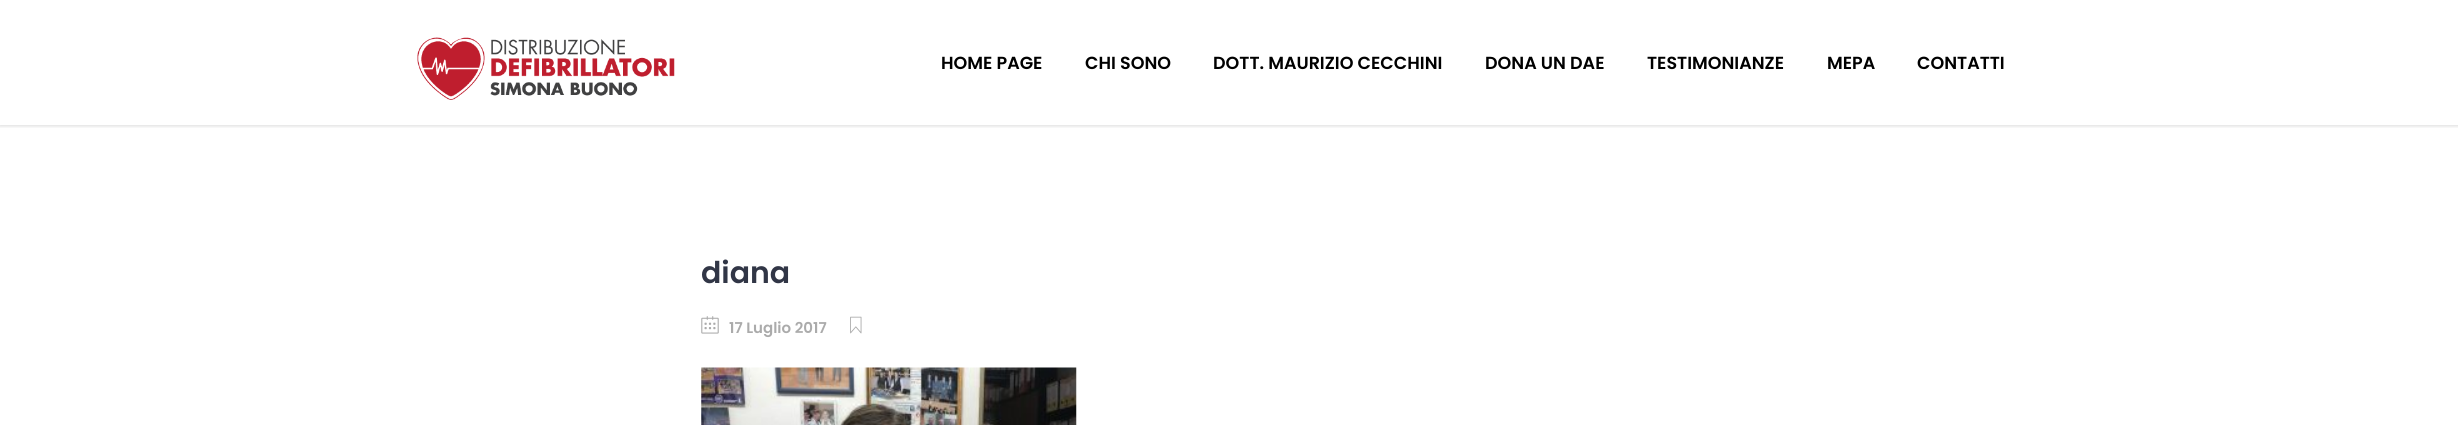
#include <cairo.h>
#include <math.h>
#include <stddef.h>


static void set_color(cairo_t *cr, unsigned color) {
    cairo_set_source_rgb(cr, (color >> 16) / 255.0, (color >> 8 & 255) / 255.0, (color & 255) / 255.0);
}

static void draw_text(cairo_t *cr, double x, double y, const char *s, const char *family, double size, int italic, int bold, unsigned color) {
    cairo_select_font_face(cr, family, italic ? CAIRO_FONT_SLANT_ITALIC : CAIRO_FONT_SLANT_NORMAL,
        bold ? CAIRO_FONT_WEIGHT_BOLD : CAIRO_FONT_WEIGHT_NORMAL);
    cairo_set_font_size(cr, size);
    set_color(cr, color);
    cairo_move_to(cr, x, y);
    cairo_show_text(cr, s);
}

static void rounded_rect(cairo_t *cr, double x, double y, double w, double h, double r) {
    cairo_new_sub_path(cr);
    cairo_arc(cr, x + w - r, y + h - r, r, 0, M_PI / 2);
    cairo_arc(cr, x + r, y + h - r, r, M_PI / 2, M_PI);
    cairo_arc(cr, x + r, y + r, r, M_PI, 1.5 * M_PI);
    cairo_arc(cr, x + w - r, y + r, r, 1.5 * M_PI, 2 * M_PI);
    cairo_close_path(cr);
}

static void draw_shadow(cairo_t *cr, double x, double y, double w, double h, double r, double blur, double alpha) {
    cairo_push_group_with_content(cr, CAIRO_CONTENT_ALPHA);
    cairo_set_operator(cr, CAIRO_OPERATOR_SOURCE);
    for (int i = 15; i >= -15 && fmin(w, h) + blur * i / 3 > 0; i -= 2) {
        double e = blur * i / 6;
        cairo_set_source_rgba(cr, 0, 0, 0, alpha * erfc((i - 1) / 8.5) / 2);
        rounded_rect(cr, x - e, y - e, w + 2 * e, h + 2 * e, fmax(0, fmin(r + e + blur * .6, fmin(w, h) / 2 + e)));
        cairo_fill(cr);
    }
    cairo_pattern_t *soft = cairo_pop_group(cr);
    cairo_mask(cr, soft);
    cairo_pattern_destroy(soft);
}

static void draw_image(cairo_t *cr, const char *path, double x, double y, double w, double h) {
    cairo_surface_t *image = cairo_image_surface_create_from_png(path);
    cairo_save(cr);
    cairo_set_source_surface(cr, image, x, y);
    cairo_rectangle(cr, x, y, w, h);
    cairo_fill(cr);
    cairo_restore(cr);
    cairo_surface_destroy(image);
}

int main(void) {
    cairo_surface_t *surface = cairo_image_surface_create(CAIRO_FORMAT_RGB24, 2458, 425);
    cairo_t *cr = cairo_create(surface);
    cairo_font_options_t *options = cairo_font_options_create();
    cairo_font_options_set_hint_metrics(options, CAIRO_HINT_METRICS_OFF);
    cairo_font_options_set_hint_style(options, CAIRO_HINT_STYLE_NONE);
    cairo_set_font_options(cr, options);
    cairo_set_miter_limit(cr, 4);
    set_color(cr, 0xFFFFFF);
    cairo_paint(cr);
    cairo_save(cr);
    cairo_rectangle(cr, 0, 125, 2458, 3);
    cairo_clip(cr);
    set_color(cr, 0x000000);
    draw_shadow(cr, 0, 1, 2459, 125, 0, 2, 0.15);
    cairo_restore(cr);
    draw_image(cr, "assets/img1.png", 417, 37, 258, 63);
    draw_text(cr, 941, 69, "HOME PAGE", "Poppins SemiBold", 17.5, 0, 0, 0x000000);
    draw_text(cr, 1085, 69, "CHI SONO", "Poppins SemiBold", 17.5, 0, 0, 0x000000);
    draw_text(cr, 1213, 69, "DOTT. MAURIZIO CECCHINI", "Poppins SemiBold", 17.5, 0, 0, 0x000000);
    draw_text(cr, 1485, 69, "DONA UN DAE", "Poppins SemiBold", 17.5, 0, 0, 0x000000);
    draw_text(cr, 1647, 69, "TESTIMONIANZE", "Poppins SemiBold", 17.5, 0, 0, 0x000000);
    draw_text(cr, 1827, 69, "MEPA", "Poppins SemiBold", 17.5, 0, 0, 0x000000);
    draw_text(cr, 1917, 69, "CONTATTI", "Poppins SemiBold", 17.5, 0, 0, 0x000000);
    draw_text(cr, 701, 283, "diana", "Poppins SemiBold", 30, 0, 0, 0x313646);
    draw_image(cr, "assets/img2.png", 701, 316, 18, 18);
    draw_text(cr, 729, 333, "17 Luglio 2017", "Poppins SemiBold", 15, 0, 0, 0xABABAB);
    draw_image(cr, "assets/img3.png", 850, 316, 12, 18);
    draw_image(cr, "assets/img4.png", 701, 367, 376, 58);
    cairo_surface_write_to_png(surface, "output.png");
    cairo_font_options_destroy(options);
    cairo_destroy(cr);
    cairo_surface_destroy(surface);
    return 0;
}
